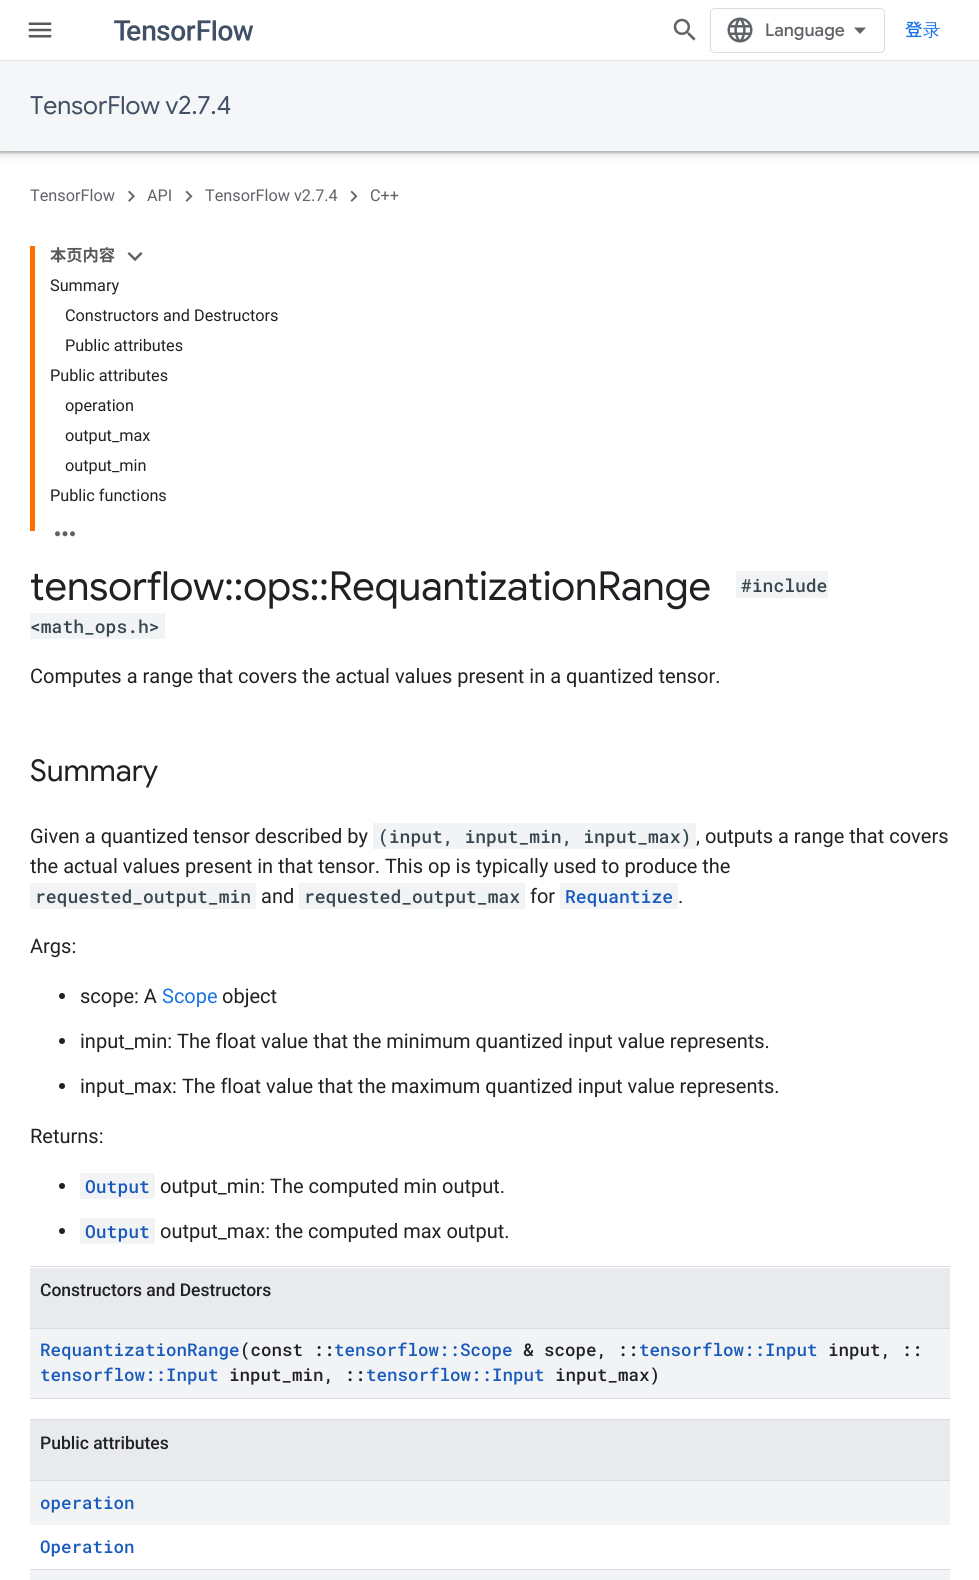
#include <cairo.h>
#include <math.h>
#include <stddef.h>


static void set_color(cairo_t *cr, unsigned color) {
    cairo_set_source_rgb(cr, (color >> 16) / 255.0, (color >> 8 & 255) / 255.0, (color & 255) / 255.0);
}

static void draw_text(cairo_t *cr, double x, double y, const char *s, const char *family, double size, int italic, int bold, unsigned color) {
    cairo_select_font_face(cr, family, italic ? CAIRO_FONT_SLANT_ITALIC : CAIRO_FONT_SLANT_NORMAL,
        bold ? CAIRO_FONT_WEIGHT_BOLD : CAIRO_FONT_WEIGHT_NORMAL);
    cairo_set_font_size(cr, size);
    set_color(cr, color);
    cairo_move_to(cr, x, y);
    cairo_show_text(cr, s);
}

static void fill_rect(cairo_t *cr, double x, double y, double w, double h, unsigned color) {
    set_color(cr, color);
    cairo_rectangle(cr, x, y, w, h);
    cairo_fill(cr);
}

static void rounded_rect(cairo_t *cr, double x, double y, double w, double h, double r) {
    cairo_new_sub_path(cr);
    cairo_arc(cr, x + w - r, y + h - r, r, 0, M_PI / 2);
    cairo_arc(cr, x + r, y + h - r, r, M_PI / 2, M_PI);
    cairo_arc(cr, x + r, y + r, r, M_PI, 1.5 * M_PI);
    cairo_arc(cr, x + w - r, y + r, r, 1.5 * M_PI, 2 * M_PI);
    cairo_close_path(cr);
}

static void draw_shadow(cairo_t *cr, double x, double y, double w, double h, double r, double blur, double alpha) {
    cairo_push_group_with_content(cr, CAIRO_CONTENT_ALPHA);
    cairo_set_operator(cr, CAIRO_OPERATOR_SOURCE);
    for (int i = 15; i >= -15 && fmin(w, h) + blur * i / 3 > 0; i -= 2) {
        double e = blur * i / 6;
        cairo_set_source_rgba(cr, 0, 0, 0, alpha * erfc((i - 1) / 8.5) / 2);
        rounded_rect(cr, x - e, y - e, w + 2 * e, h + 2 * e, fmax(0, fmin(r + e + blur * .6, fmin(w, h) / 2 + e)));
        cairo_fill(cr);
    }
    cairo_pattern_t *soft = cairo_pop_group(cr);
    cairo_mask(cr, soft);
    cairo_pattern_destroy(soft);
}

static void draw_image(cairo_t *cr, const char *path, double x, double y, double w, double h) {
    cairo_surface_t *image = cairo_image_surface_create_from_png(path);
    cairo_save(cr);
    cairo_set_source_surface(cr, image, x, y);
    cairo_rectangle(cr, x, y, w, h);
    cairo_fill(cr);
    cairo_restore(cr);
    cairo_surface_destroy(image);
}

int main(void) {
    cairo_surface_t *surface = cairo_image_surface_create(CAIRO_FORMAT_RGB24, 979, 1580);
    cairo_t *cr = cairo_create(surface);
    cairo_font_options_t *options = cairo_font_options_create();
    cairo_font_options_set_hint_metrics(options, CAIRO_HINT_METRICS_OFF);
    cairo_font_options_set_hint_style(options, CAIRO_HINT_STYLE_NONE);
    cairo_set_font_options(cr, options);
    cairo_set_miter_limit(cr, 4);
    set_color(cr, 0xFFFFFF);
    cairo_paint(cr);
    set_color(cr, 0x3C4043);
    draw_shadow(cr, -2, 61, 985, 95, 0, 4, 0.15);
    draw_shadow(cr, 0, 63, 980, 90, 0, 1, 0.3);
    fill_rect(cr, 0, 56, 979, 4, 0xFFFFFF);
    fill_rect(cr, 0, 60, 979, 1, 0xE6E6E6);
    draw_image(cr, "assets/img1.png", 28, 22, 24, 16);
    draw_image(cr, "assets/img2.png", 114, 20, 140, 21);
    draw_image(cr, "assets/img3.png", 673, 18, 23, 23);
    rounded_rect(cr, 710.5, 8.5, 174, 44, 4.5);
    set_color(cr, 0xDADCE0);
    cairo_set_line_width(cr, 1);
    cairo_stroke(cr);
    draw_image(cr, "assets/img4.png", 727, 17, 26, 26);
    draw_text(cr, 765, 36, "Language", "Google Sans Medium", 17.5, 0, 0, 0x5F6368);
    cairo_new_path(cr);
    cairo_move_to(cr, 860, 34);
    cairo_line_to(cr, 854, 27.5);
    cairo_line_to(cr, 866, 27.5);
    cairo_close_path(cr);
    cairo_fill(cr);
    draw_text(cr, 905, 36, "登", "Noto Sans JP Medium", 17.5, 0, 0, 0x1A73E8);
    draw_text(cr, 923, 36, "录", "WenQuanYi Zen Hei Medium", 17.5, 0, 0, 0x1A73E8);
    fill_rect(cr, 0, 61, 979, 90, 0xF5F6F7);
    draw_text(cr, 30, 114, "TensorFlow v2.7.4", "Google Sans", 25, 0, 0, 0x425066);
    draw_text(cr, 30, 201, "TensorFlow", "Roboto", 16.25, 0, 0, 0x5F6368);
    draw_image(cr, "assets/img5.png", 128, 190, 7, 12);
    draw_text(cr, 147, 201, "API", "Roboto", 16.25, 0, 0, 0x5F6368);
    draw_image(cr, "assets/img6.png", 185, 190, 8, 12);
    draw_text(cr, 205, 201, "TensorFlow v2.7.4", "Roboto", 16.25, 0, 0, 0x5F6368);
    draw_image(cr, "assets/img6.png", 350, 190, 8, 12);
    draw_text(cr, 370, 201, "C++", "Roboto", 16.25, 0, 0, 0x5F6368);
    fill_rect(cr, 30, 246, 5, 285, 0xFF6F00);
    draw_text(cr, 50, 261, "本页内容", "Noto Sans JP", 16.25, 0, 1, 0x595959);
    draw_image(cr, "assets/img7.png", 127, 252, 16, 10);
    draw_text(cr, 50, 291, "Summary", "Roboto", 16.25, 0, 0, 0x202124);
    draw_text(cr, 65, 321, "Constructors and Destructors", "Roboto", 16.25, 0, 0, 0x202124);
    draw_text(cr, 65, 351, "Public attributes", "Roboto", 16.25, 0, 0, 0x202124);
    draw_text(cr, 50, 381, "Public attributes", "Roboto", 16.25, 0, 0, 0x202124);
    draw_text(cr, 65, 411, "operation", "Roboto", 16.25, 0, 0, 0x202124);
    draw_text(cr, 65, 441, "output_max", "Roboto", 16.25, 0, 0, 0x202124);
    draw_text(cr, 65, 471, "output_min", "Roboto", 16.25, 0, 0, 0x202124);
    draw_text(cr, 50, 501, "Public functions", "Roboto", 16.25, 0, 0, 0x202124);
    draw_image(cr, "assets/img8.png", 55, 531, 20, 6);
    draw_text(cr, 30, 600, "tensorflow::ops::RequantizationRange", "Google Sans", 40, 0, 0, 0x202124);
    fill_rect(cr, 736, 571, 92, 27, 0xF1F3F4);
    draw_text(cr, 741, 592, "#include", "Roboto Mono Medium", 18, 0, 0, 0x37474F);
    fill_rect(cr, 30, 613, 135, 26, 0xF1F3F4);
    draw_text(cr, 30, 633, "<math_ops.h>", "Roboto Mono Medium", 18, 0, 0, 0x37474F);
    draw_text(cr, 30, 683, "Computes a range that covers the actual values present in a quantized tensor.", "Roboto", 20, 0, 0, 0x202124);
    draw_text(cr, 30, 781, "Summary", "Google Sans", 30, 0, 0, 0x202124);
    draw_text(cr, 30, 843, "Given a quantized tensor described by", "Roboto", 20, 0, 0, 0x202124);
    fill_rect(cr, 373, 823, 323, 26, 0xF1F3F4);
    draw_text(cr, 378, 843, "(input, input_min, input_max)", "Roboto Mono Medium", 18, 0, 0, 0x37474F);
    draw_text(cr, 696, 843, ", outputs a range that covers", "Roboto", 20, 0, 0, 0x202124);
    draw_text(cr, 30, 873, "the actual values present in that tensor. This op is typically used to produce the", "Roboto", 20, 0, 0, 0x202124);
    fill_rect(cr, 30, 883, 226, 26, 0xF1F3F4);
    draw_text(cr, 35, 903, "requested_output_min", "Roboto Mono Medium", 18, 0, 0, 0x37474F);
    draw_text(cr, 261, 903, "and", "Roboto", 20, 0, 0, 0x202124);
    fill_rect(cr, 299, 883, 226, 26, 0xF1F3F4);
    draw_text(cr, 304, 903, "requested_output_max", "Roboto Mono Medium", 18, 0, 0, 0x37474F);
    draw_text(cr, 530, 903, "for", "Roboto", 20, 0, 0, 0x202124);
    fill_rect(cr, 560, 883, 118, 26, 0xF1F3F4);
    draw_text(cr, 565, 903, "Requantize", "Roboto Mono Medium", 18, 0, 0, 0x185ABC);
    draw_text(cr, 678, 903, ".", "Roboto", 20, 0, 0, 0x202124);
    draw_text(cr, 30, 953, "Args:", "Roboto", 20, 0, 0, 0x202124);
    cairo_new_path(cr);
    cairo_arc(cr, 62, 996, 3, 0, 2 * M_PI);
    cairo_fill(cr);
    draw_text(cr, 80, 1003, "scope: A", "Roboto", 20, 0, 0, 0x202124);
    draw_text(cr, 162, 1003, "Scope", "Roboto", 20, 0, 0, 0x1A73E8);
    draw_text(cr, 222, 1003, "object", "Roboto", 20, 0, 0, 0x202124);
    cairo_new_path(cr);
    cairo_arc(cr, 62, 1041, 3, 0, 2 * M_PI);
    cairo_fill(cr);
    draw_text(cr, 80, 1048, "input_min: The float value that the minimum quantized input value represents.", "Roboto", 20, 0, 0, 0x202124);
    cairo_new_path(cr);
    cairo_arc(cr, 62, 1086, 3, 0, 2 * M_PI);
    cairo_fill(cr);
    draw_text(cr, 80, 1093, "input_max: The float value that the maximum quantized input value represents.", "Roboto", 20, 0, 0, 0x202124);
    draw_text(cr, 30, 1143, "Returns:", "Roboto", 20, 0, 0, 0x202124);
    cairo_new_path(cr);
    cairo_arc(cr, 62, 1186, 3, 0, 2 * M_PI);
    cairo_fill(cr);
    fill_rect(cr, 80, 1173, 75, 26, 0xF1F3F4);
    draw_text(cr, 85, 1193, "Output", "Roboto Mono Medium", 18, 0, 0, 0x185ABC);
    draw_text(cr, 160, 1193, "output_min: The computed min output.", "Roboto", 20, 0, 0, 0x202124);
    cairo_new_path(cr);
    cairo_arc(cr, 62, 1231, 3, 0, 2 * M_PI);
    cairo_fill(cr);
    fill_rect(cr, 80, 1218, 75, 26, 0xF1F3F4);
    draw_text(cr, 85, 1238, "Output", "Roboto Mono Medium", 18, 0, 0, 0x185ABC);
    draw_text(cr, 160, 1238, "output_max: the computed max output.", "Roboto", 20, 0, 0, 0x202124);
    fill_rect(cr, 30, 1266, 920, 1, 0xDADCE0);
    fill_rect(cr, 30, 1328, 920, 1, 0xDADCE0);
    fill_rect(cr, 30, 1268, 920, 60, 0xE8EAED);
    draw_text(cr, 40, 1296, "Constructors and Destructors", "Roboto Medium", 17.5, 0, 0, 0x202124);
    fill_rect(cr, 30, 1398, 920, 1, 0xDADCE0);
    fill_rect(cr, 30, 1329, 920, 69, 0xF1F3F4);
    draw_text(cr, 40, 1356, "RequantizationRange", "Roboto Mono Medium", 17.5, 0, 0, 0x185ABC);
    draw_text(cr, 240, 1356, "(const ::", "Roboto Mono Medium", 17.5, 0, 0, 0x202124);
    draw_text(cr, 334, 1356, "tensorflow::Scope", "Roboto Mono Medium", 17.5, 0, 0, 0x185ABC);
    draw_text(cr, 523, 1356, "& scope, ::", "Roboto Mono Medium", 17.5, 0, 0, 0x202124);
    draw_text(cr, 639, 1356, "tensorflow::Input", "Roboto Mono Medium", 17.5, 0, 0, 0x185ABC);
    draw_text(cr, 828, 1356, "input, ::", "Roboto Mono Medium", 17.5, 0, 0, 0x202124);
    draw_text(cr, 40, 1381, "tensorflow::Input", "Roboto Mono Medium", 17.5, 0, 0, 0x185ABC);
    draw_text(cr, 229, 1381, "input_min, ::", "Roboto Mono Medium", 17.5, 0, 0, 0x202124);
    draw_text(cr, 366, 1381, "tensorflow::Input", "Roboto Mono Medium", 17.5, 0, 0, 0x185ABC);
    draw_text(cr, 555, 1381, "input_max)", "Roboto Mono Medium", 17.5, 0, 0, 0x202124);
    fill_rect(cr, 30, 1419, 920, 1, 0xDADCE0);
    fill_rect(cr, 30, 1480, 920, 1, 0xDADCE0);
    fill_rect(cr, 30, 1420, 920, 60, 0xE8EAED);
    draw_text(cr, 40, 1449, "Public attributes", "Roboto Medium", 17.5, 0, 0, 0x202124);
    fill_rect(cr, 30, 1569, 920, 1, 0xDADCE0);
    fill_rect(cr, 30, 1481, 920, 44, 0xF1F3F4);
    draw_text(cr, 40, 1509, "operation", "Roboto Mono Medium", 17.5, 0, 0, 0x185ABC);
    draw_text(cr, 40, 1553, "Operation", "Roboto Mono Medium", 17.5, 0, 0, 0x185ABC);
    fill_rect(cr, 30, 1570, 920, 10, 0xF1F3F4);
    cairo_surface_write_to_png(surface, "output.png");
    cairo_font_options_destroy(options);
    cairo_destroy(cr);
    cairo_surface_destroy(surface);
    return 0;
}
